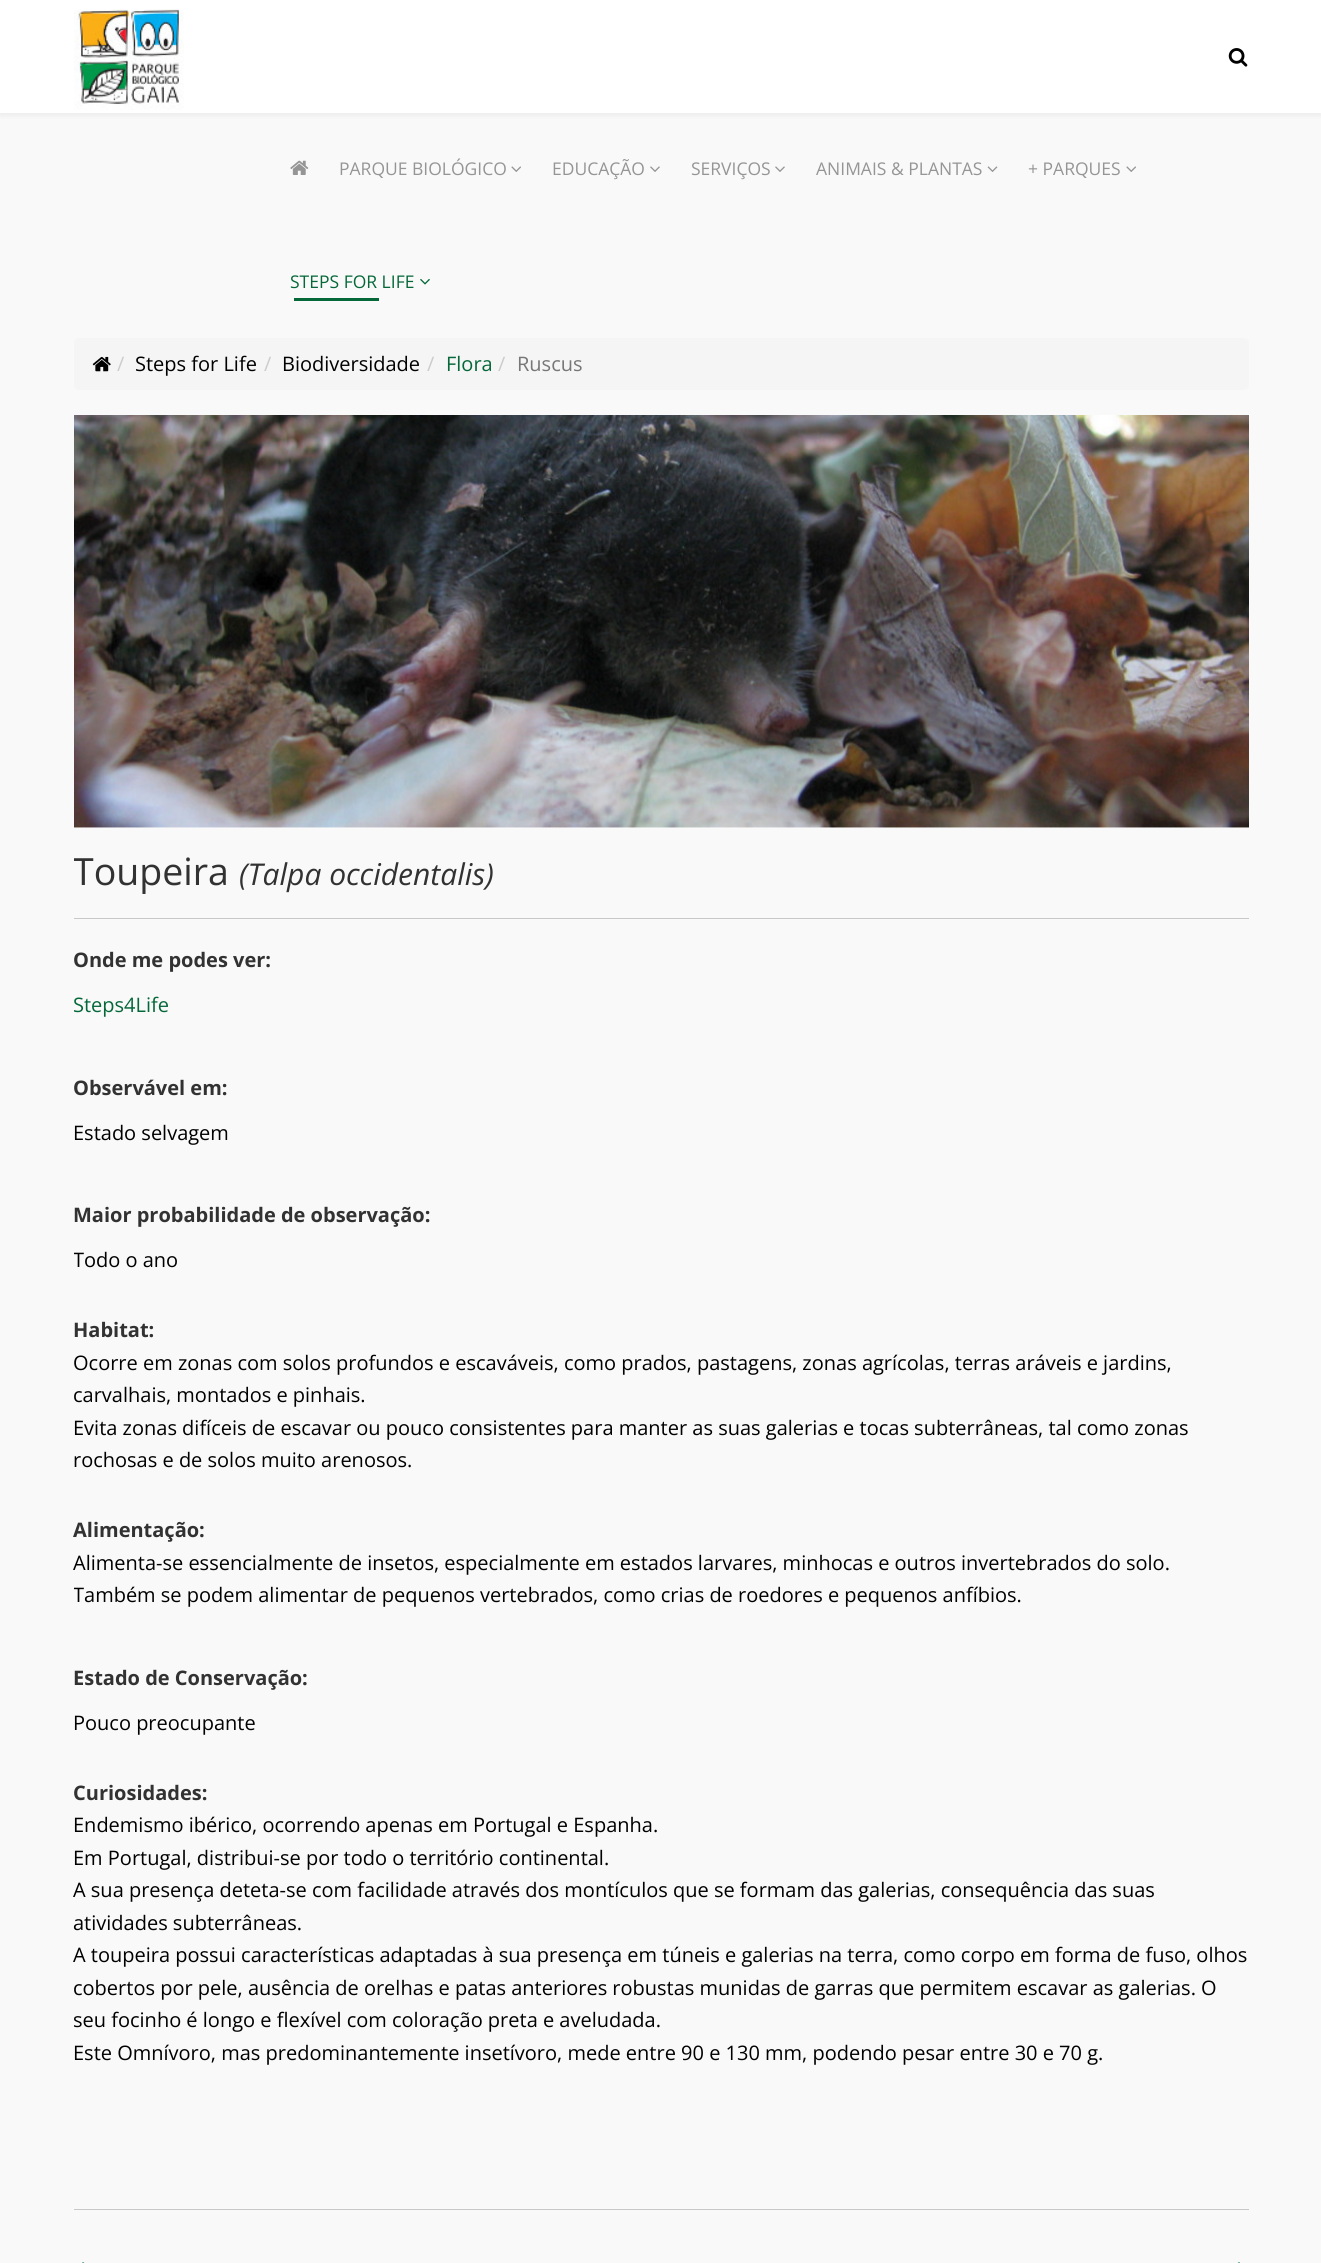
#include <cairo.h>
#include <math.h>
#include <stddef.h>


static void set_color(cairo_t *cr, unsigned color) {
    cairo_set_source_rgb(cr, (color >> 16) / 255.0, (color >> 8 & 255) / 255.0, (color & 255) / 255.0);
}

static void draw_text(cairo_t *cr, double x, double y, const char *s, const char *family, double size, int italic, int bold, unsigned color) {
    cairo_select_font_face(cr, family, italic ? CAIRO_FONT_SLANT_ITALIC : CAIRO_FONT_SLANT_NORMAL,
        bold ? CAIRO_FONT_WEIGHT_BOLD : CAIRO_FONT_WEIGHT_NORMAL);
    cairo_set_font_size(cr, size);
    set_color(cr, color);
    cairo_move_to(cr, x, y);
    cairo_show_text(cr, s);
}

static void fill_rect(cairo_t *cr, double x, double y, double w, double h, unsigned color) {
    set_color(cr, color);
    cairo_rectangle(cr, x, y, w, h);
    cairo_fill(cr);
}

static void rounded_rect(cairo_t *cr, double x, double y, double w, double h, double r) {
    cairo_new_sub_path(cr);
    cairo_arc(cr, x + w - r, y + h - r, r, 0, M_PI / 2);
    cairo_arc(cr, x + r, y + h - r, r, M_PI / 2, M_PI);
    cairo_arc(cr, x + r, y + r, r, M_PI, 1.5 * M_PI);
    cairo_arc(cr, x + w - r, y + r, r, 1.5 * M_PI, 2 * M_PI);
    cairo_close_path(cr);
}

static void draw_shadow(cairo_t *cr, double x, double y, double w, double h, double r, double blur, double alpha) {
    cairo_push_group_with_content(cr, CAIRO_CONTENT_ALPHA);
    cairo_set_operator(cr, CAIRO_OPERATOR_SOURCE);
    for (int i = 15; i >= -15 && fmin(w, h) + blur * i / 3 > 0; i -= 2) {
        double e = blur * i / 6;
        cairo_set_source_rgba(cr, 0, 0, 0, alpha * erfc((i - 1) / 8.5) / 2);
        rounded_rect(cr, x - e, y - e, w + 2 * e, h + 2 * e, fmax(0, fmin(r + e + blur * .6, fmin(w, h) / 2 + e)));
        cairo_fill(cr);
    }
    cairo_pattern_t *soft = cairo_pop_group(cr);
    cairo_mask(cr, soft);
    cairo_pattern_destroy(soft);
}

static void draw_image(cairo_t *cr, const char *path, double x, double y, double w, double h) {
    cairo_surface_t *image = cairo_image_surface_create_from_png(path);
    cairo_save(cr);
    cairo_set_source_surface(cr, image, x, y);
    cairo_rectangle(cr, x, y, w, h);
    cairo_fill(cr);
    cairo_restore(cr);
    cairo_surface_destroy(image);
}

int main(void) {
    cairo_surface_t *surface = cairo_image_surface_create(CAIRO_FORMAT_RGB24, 1321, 2263);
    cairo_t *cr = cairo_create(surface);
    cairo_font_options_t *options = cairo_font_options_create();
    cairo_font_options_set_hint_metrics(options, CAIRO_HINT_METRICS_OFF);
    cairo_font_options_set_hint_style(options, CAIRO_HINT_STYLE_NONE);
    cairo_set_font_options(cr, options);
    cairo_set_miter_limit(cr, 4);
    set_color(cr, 0xF9F9F9);
    cairo_paint(cr);
    set_color(cr, 0x000000);
    draw_shadow(cr, 0, 4, 1321, 112, 0, 2, 0.05);
    fill_rect(cr, 0, 0, 1321, 113, 0xFFFFFF);
    draw_image(cr, "assets/img1.png", 74, 9, 110, 101);
    draw_image(cr, "assets/img2.png", 1228, 48, 20, 19);
    draw_image(cr, "assets/img3.png", 290, 160, 19, 15);
    draw_text(cr, 339, 175, "PARQUE BIOLÓGICO", "Open Sans", 17.5, 0, 0, 0x959595);
    draw_image(cr, "assets/img4.png", 511, 166, 10, 6);
    draw_text(cr, 552, 175, "EDUCAÇÃO", "Open Sans", 17.5, 0, 0, 0x959595);
    draw_image(cr, "assets/img5.png", 650, 166, 10, 6);
    draw_text(cr, 691, 175, "SERVIÇOS", "Open Sans", 17.5, 0, 0, 0x959595);
    draw_image(cr, "assets/img5.png", 775, 166, 10, 6);
    draw_text(cr, 816, 175, "ANIMAIS & PLANTAS", "Open Sans", 17.5, 0, 0, 0x959595);
    draw_image(cr, "assets/img6.png", 987, 166, 11, 6);
    draw_text(cr, 1028, 175, "+ PARQUES", "Open Sans", 17.5, 0, 0, 0x959595);
    draw_image(cr, "assets/img4.png", 1126, 166, 10, 6);
    draw_text(cr, 290, 288, "STEPS FOR LIFE", "Open Sans", 17.5, 0, 0, 0x056839);
    draw_image(cr, "assets/img7.png", 420, 278, 10, 7);
    fill_rect(cr, 294, 298, 85, 3, 0x056839);
    set_color(cr, 0xF5F5F5);
    rounded_rect(cr, 74, 338, 1175, 52, 5);
    cairo_fill(cr);
    draw_image(cr, "assets/img8.png", 92, 356, 19, 16);
    draw_text(cr, 117, 371, "/", "Open Sans", 20, 0, 0, 0xCCCCCC);
    draw_text(cr, 135, 371, "Steps for Life", "Open Sans", 20, 0, 0, 0x000000);
    draw_text(cr, 264, 371, "/", "Open Sans", 20, 0, 0, 0xCCCCCC);
    draw_text(cr, 282, 371, "Biodiversidade", "Open Sans", 20, 0, 0, 0x000000);
    draw_text(cr, 427, 371, "/", "Open Sans", 20, 0, 0, 0xCCCCCC);
    draw_text(cr, 446, 371, "Flora", "Open Sans", 20, 0, 0, 0x056839);
    draw_text(cr, 498, 371, "/", "Open Sans", 20, 0, 0, 0xCCCCCC);
    draw_text(cr, 517, 371, "Ruscus", "Open Sans", 20, 0, 0, 0x777777);
    draw_image(cr, "assets/img9.png", 74, 415, 1175, 413);
    cairo_save(cr);
    cairo_rectangle(cr, 74, 853, 1175, 1331);
    cairo_clip(cr);
    draw_text(cr, 73, 885, "Toupeira", "Open Sans", 37.5, 0, 0, 0x323232);
    cairo_restore(cr);
    draw_text(cr, 239, 885, "(Talpa occidentalis)", "Open Sans", 30, 1, 0, 0x323232);
    fill_rect(cr, 74, 918, 1175, 1, 0xC8C8C8);
    draw_text(cr, 73, 967, "Onde me podes ver:", "Open Sans", 20, 0, 1, 0x323232);
    draw_text(cr, 73, 1012, "Steps4Life", "Open Sans", 20, 0, 0, 0x056839);
    draw_text(cr, 73, 1095, "Observável em:", "Open Sans", 20, 0, 1, 0x323232);
    draw_text(cr, 73, 1140, "Estado selvagem", "Open Sans", 20, 0, 0, 0x000000);
    draw_text(cr, 73, 1222, "Maior probabilidade de observação:", "Open Sans", 20, 0, 1, 0x323232);
    cairo_save(cr);
    cairo_rectangle(cr, 74, 919, 1175, 1265);
    cairo_clip(cr);
    draw_text(cr, 73, 1267, "Todo o ano", "Open Sans", 20, 0, 0, 0x000000);
    cairo_restore(cr);
    draw_text(cr, 73, 1337, "Habitat:", "Open Sans", 20, 0, 1, 0x323232);
    draw_text(cr, 73, 1370, "Ocorre em zonas com solos profundos e escaváveis, como prados, pastagens, zonas agrícolas, terras aráveis e jardins,", "Open Sans", 20, 0, 0, 0x000000);
    draw_text(cr, 73, 1402, "carvalhais, montados e pinhais.", "Open Sans", 20, 0, 0, 0x000000);
    draw_text(cr, 73, 1435, "Evita zonas difíceis de escavar ou pouco consistentes para manter as suas galerias e tocas subterrâneas, tal como zonas", "Open Sans", 20, 0, 0, 0x000000);
    draw_text(cr, 73, 1467, "rochosas e de solos muito arenosos.", "Open Sans", 20, 0, 0, 0x000000);
    draw_text(cr, 73, 1537, "Alimentação:", "Open Sans", 20, 0, 1, 0x323232);
    draw_text(cr, 73, 1570, "Alimenta-se essencialmente de insetos, especialmente em estados larvares, minhocas e outros invertebrados do solo.", "Open Sans", 20, 0, 0, 0x000000);
    cairo_save(cr);
    cairo_rectangle(cr, 74, 919, 1175, 1265);
    cairo_clip(cr);
    draw_text(cr, 73, 1602, "Também se podem alimentar de pequenos vertebrados, como crias de roedores e pequenos anfíbios.", "Open Sans", 20, 0, 0, 0x000000);
    cairo_restore(cr);
    draw_text(cr, 73, 1685, "Estado de Conservação:", "Open Sans", 20, 0, 1, 0x323232);
    draw_text(cr, 73, 1730, "Pouco preocupante", "Open Sans", 20, 0, 0, 0x000000);
    draw_text(cr, 73, 1800, "Curiosidades:", "Open Sans", 20, 0, 1, 0x323232);
    draw_text(cr, 73, 1832, "Endemismo ibérico, ocorrendo apenas em Portugal e Espanha.", "Open Sans", 20, 0, 0, 0x000000);
    draw_text(cr, 73, 1865, "Em Portugal, distribui-se por todo o território continental.", "Open Sans", 20, 0, 0, 0x000000);
    draw_text(cr, 73, 1897, "A sua presença deteta-se com facilidade através dos montículos que se formam das galerias, consequência das suas", "Open Sans", 20, 0, 0, 0x000000);
    draw_text(cr, 73, 1930, "atividades subterrâneas.", "Open Sans", 20, 0, 0, 0x000000);
    draw_text(cr, 73, 1962, "A toupeira possui características adaptadas à sua presença em túneis e galerias na terra, como corpo em forma de fuso, olhos", "Open Sans", 20, 0, 0, 0x000000);
    draw_text(cr, 73, 1995, "cobertos por pele, ausência de orelhas e patas anteriores robustas munidas de garras que permitem escavar as galerias. O", "Open Sans", 20, 0, 0, 0x000000);
    draw_text(cr, 73, 2027, "seu focinho é longo e flexível com coloração preta e aveludada.", "Open Sans", 20, 0, 0, 0x000000);
    draw_text(cr, 73, 2060, "Este Omnívoro, mas predominantemente insetívoro, mede entre 90 e 130 mm, podendo pesar entre 30 e 70 g.", "Open Sans", 20, 0, 0, 0x000000);
    fill_rect(cr, 74, 2209, 1175, 1, 0xC8C8C8);
    draw_image(cr, "assets/img10.png", 82, 2262, 3, 1);
    draw_image(cr, "assets/img11.png", 1237, 2262, 3, 1);
    cairo_surface_write_to_png(surface, "output.png");
    cairo_font_options_destroy(options);
    cairo_destroy(cr);
    cairo_surface_destroy(surface);
    return 0;
}
